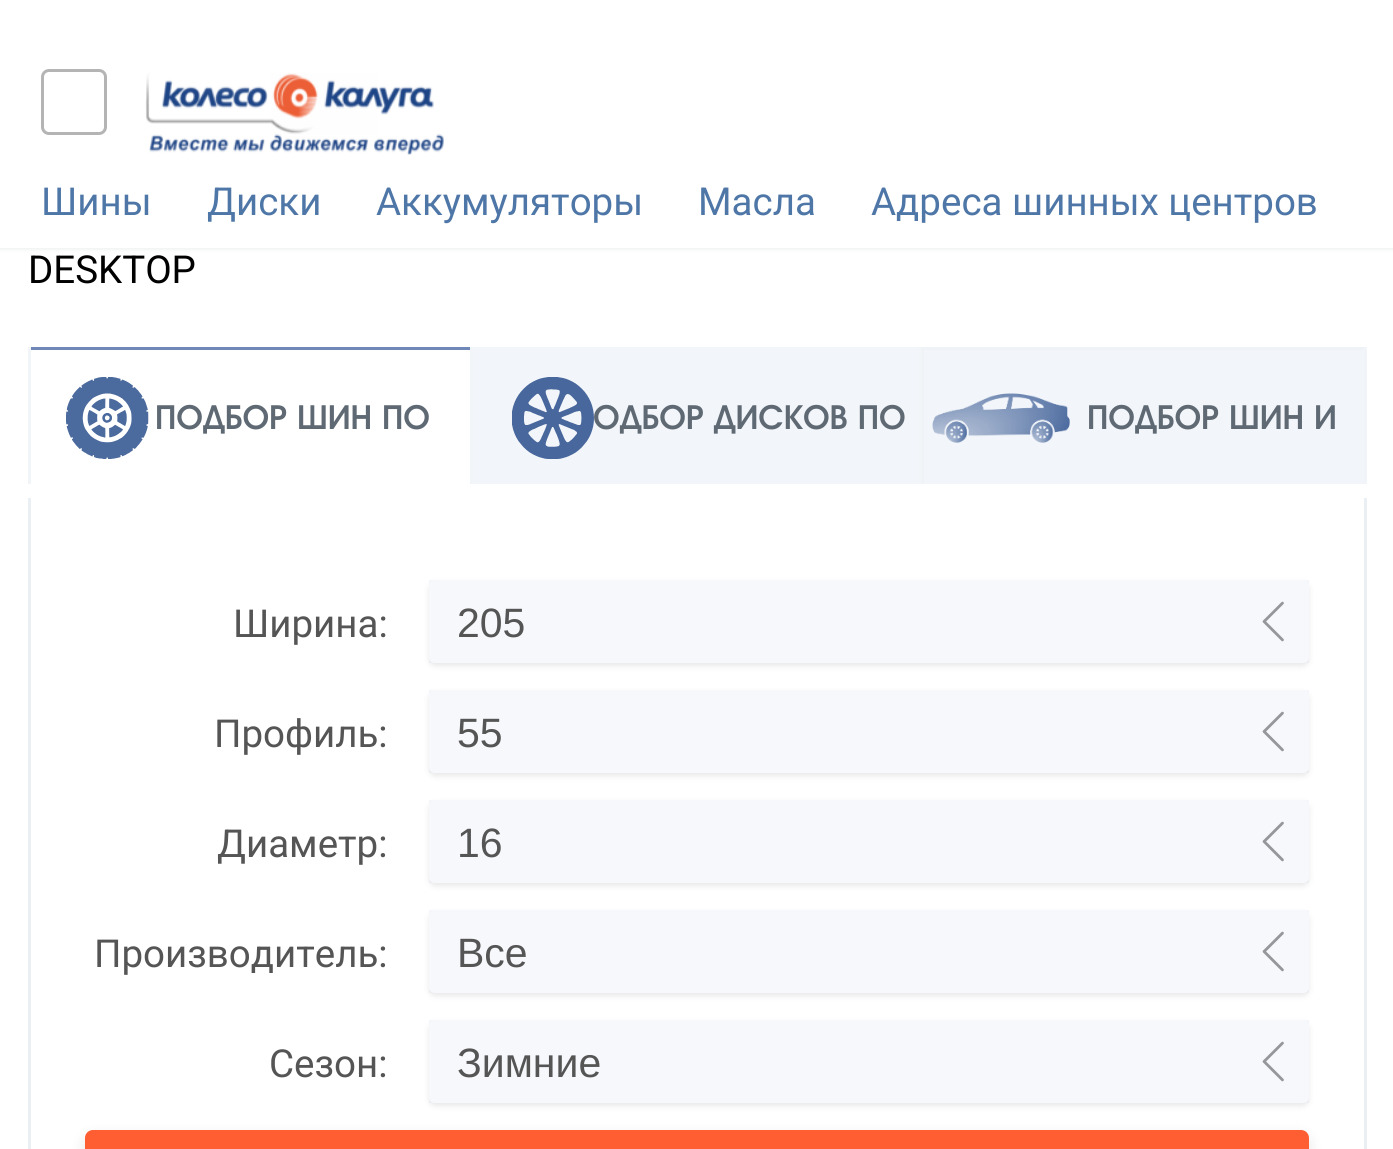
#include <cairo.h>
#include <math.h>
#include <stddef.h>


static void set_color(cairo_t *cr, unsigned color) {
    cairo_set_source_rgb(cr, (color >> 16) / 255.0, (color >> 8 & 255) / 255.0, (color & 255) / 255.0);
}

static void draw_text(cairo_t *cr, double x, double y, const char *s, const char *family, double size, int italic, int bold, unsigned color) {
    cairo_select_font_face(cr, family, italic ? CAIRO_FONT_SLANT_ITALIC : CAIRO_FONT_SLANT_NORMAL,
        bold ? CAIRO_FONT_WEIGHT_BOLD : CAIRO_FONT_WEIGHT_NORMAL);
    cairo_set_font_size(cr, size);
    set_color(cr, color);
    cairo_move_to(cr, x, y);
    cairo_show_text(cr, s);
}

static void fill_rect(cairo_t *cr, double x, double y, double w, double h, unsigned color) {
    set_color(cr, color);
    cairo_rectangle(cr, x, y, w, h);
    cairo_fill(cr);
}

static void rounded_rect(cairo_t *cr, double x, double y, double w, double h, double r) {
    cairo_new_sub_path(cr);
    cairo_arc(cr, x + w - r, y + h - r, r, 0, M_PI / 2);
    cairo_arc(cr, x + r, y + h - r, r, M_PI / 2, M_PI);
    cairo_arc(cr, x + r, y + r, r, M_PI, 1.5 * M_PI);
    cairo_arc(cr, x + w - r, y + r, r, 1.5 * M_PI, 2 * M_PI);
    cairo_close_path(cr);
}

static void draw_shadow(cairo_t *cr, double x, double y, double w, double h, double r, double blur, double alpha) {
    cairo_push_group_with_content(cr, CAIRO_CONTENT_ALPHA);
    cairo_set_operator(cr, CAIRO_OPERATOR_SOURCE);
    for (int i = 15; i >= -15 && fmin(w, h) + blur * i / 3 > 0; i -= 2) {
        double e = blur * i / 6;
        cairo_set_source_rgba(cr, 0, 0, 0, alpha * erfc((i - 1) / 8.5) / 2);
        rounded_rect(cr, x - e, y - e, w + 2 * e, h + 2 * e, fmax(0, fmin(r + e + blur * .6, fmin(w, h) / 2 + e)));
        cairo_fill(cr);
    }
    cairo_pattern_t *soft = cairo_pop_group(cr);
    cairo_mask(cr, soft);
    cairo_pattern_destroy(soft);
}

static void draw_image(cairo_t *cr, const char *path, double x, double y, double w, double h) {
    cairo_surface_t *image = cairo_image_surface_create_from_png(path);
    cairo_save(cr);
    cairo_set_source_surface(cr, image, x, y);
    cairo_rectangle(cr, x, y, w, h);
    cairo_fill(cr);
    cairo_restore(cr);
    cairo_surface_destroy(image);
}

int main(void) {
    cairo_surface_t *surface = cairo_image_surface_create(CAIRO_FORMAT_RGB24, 1393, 1149);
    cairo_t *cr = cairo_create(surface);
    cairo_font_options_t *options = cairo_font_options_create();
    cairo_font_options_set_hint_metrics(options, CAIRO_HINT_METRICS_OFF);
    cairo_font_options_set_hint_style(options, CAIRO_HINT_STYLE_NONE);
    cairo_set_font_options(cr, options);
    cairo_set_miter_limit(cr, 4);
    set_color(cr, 0xFFFFFF);
    cairo_paint(cr);
    set_color(cr, 0xF1F2F3);
    draw_shadow(cr, -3, -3, 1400, 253, 0, 1.5, 1);
    fill_rect(cr, 0, 0, 1393, 248, 0xFFFFFF);
    rounded_rect(cr, 42.5, 70.5, 63, 63, 6.5);
    set_color(cr, 0xB3B4B3);
    cairo_set_line_width(cr, 3);
    cairo_stroke(cr);
    draw_image(cr, "assets/img1.png", 145, 73, 299, 82);
    draw_text(cr, 41, 215, "Шины", "Roboto", 38.5, 0, 0, 0x4E77A8);
    draw_text(cr, 207, 215, "Диски", "Roboto", 38.5, 0, 0, 0x4E77A8);
    draw_text(cr, 376, 215, "Аккумуляторы", "Roboto", 38.5, 0, 0, 0x4E77A8);
    draw_text(cr, 698, 215, "Масла", "Roboto", 38.5, 0, 0, 0x4E77A8);
    draw_text(cr, 871, 215, "Адреса шинных центров", "Roboto", 38.5, 0, 0, 0x4E77A8);
    draw_text(cr, 28, 283, "DESKTOP", "Roboto", 38.5, 0, 0, 0x000000);
    draw_image(cr, "assets/img2.png", 66, 377, 83, 82);
    fill_rect(cr, 28, 347, 445, 3, 0x6F88B8);
    fill_rect(cr, 470, 347, 3, 137, 0xF1F5F8);
    fill_rect(cr, 28, 347, 3, 137, 0xF1F5F8);
    draw_text(cr, 155, 429, "ПОДБОР ШИН ПО", "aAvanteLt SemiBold", 33, 0, 0, 0x5E6974);
    fill_rect(cr, 473, 347, 446, 137, 0xF2F5F9);
    draw_image(cr, "assets/img3.png", 512, 377, 82, 82);
    fill_rect(cr, 919, 347, 3, 137, 0xF1F5F8);
    draw_text(cr, 593, 429, "ОДБОР ДИСКОВ ПО", "aAvanteLt SemiBold", 33, 0, 0, 0x5E6974);
    cairo_set_source_rgba(cr, 0.937, 0.949, 0.969, 0.8);
    cairo_rectangle(cr, 922, 347, 442, 137);
    cairo_fill(cr);
    draw_image(cr, "assets/img4.png", 932, 393, 138, 50);
    cairo_set_source_rgba(cr, 0.933, 0.949, 0.965, 0.8);
    cairo_rectangle(cr, 921, 347, 446, 3);
    cairo_fill(cr);
    fill_rect(cr, 1364, 347, 3, 137, 0xF1F4F8);
    cairo_set_source_rgba(cr, 0.933, 0.949, 0.965, 0.8);
    cairo_rectangle(cr, 922, 347, 2, 137);
    cairo_fill(cr);
    draw_text(cr, 1087, 429, "ПОДБОР ШИН И", "aAvanteLt SemiBold", 33, 0, 0, 0x5E6974);
    fill_rect(cr, 1364, 498, 3, 651, 0xEAEFF4);
    fill_rect(cr, 28, 498, 3, 651, 0xEAEFF4);
    draw_text(cr, 233, 637, "Ширина:", "Roboto", 38.5, 0, 0, 0x555555);
    draw_image(cr, "assets/img5.png", 1262, 601, 22, 41);
    cairo_save(cr);
    cairo_set_fill_rule(cr, CAIRO_FILL_RULE_EVEN_ODD);
    cairo_new_path(cr);
    cairo_move_to(cr, 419, 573);
    cairo_line_to(cr, 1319, 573);
    cairo_line_to(cr, 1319, 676);
    cairo_line_to(cr, 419, 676);
    cairo_close_path(cr);
    cairo_move_to(cr, 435, 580);
    cairo_line_to(cr, 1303, 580);
    cairo_curve_to(cr, 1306.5, 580, 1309, 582.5, 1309, 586);
    cairo_line_to(cr, 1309, 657);
    cairo_curve_to(cr, 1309, 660.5, 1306.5, 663, 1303, 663);
    cairo_line_to(cr, 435, 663);
    cairo_curve_to(cr, 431.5, 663, 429, 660.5, 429, 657);
    cairo_line_to(cr, 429, 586);
    cairo_curve_to(cr, 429, 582.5, 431.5, 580, 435, 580);
    cairo_close_path(cr);
    cairo_clip(cr);
    set_color(cr, 0x000000);
    draw_shadow(cr, 429, 583, 880, 83, 6, 3, 0.09);
    cairo_restore(cr);
    cairo_set_source_rgba(cr, 0.294, 0.416, 0.651, 0.05);
    cairo_rectangle(cr, 429, 580, 880, 83);
    cairo_fill(cr);
    draw_text(cr, 457, 637, "205", "Liberation Sans", 41, 0, 0, 0x555555);
    draw_text(cr, 214, 747, "Профиль:", "Roboto", 38.5, 0, 0, 0x555555);
    draw_image(cr, "assets/img5.png", 1262, 711, 22, 41);
    cairo_save(cr);
    cairo_set_fill_rule(cr, CAIRO_FILL_RULE_EVEN_ODD);
    cairo_new_path(cr);
    cairo_move_to(cr, 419, 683);
    cairo_line_to(cr, 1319, 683);
    cairo_line_to(cr, 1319, 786);
    cairo_line_to(cr, 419, 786);
    cairo_close_path(cr);
    cairo_move_to(cr, 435, 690);
    cairo_line_to(cr, 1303, 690);
    cairo_curve_to(cr, 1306.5, 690, 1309, 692.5, 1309, 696);
    cairo_line_to(cr, 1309, 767);
    cairo_curve_to(cr, 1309, 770.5, 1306.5, 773, 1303, 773);
    cairo_line_to(cr, 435, 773);
    cairo_curve_to(cr, 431.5, 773, 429, 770.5, 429, 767);
    cairo_line_to(cr, 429, 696);
    cairo_curve_to(cr, 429, 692.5, 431.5, 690, 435, 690);
    cairo_close_path(cr);
    cairo_clip(cr);
    set_color(cr, 0x000000);
    draw_shadow(cr, 429, 693, 880, 83, 6, 3, 0.09);
    cairo_restore(cr);
    cairo_set_source_rgba(cr, 0.294, 0.416, 0.651, 0.05);
    cairo_rectangle(cr, 429, 690, 880, 83);
    cairo_fill(cr);
    draw_text(cr, 457, 747, "55", "Liberation Sans", 41, 0, 0, 0x555555);
    draw_text(cr, 217, 857, "Диаметр:", "Roboto", 38.5, 0, 0, 0x555555);
    draw_image(cr, "assets/img5.png", 1262, 821, 22, 41);
    cairo_save(cr);
    cairo_set_fill_rule(cr, CAIRO_FILL_RULE_EVEN_ODD);
    cairo_new_path(cr);
    cairo_move_to(cr, 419, 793);
    cairo_line_to(cr, 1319, 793);
    cairo_line_to(cr, 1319, 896);
    cairo_line_to(cr, 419, 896);
    cairo_close_path(cr);
    cairo_move_to(cr, 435, 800);
    cairo_line_to(cr, 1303, 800);
    cairo_curve_to(cr, 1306.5, 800, 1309, 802.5, 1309, 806);
    cairo_line_to(cr, 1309, 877);
    cairo_curve_to(cr, 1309, 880.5, 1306.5, 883, 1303, 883);
    cairo_line_to(cr, 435, 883);
    cairo_curve_to(cr, 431.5, 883, 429, 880.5, 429, 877);
    cairo_line_to(cr, 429, 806);
    cairo_curve_to(cr, 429, 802.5, 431.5, 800, 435, 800);
    cairo_close_path(cr);
    cairo_clip(cr);
    set_color(cr, 0x000000);
    draw_shadow(cr, 429, 803, 880, 83, 6, 3, 0.09);
    cairo_restore(cr);
    cairo_set_source_rgba(cr, 0.294, 0.416, 0.651, 0.05);
    cairo_rectangle(cr, 429, 800, 880, 83);
    cairo_fill(cr);
    draw_text(cr, 457, 857, "16", "Liberation Sans", 41, 0, 0, 0x555555);
    draw_text(cr, 94, 967, "Производитель:", "Roboto", 38.5, 0, 0, 0x555555);
    draw_image(cr, "assets/img5.png", 1262, 931, 22, 41);
    cairo_save(cr);
    cairo_set_fill_rule(cr, CAIRO_FILL_RULE_EVEN_ODD);
    cairo_new_path(cr);
    cairo_move_to(cr, 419, 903);
    cairo_line_to(cr, 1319, 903);
    cairo_line_to(cr, 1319, 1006);
    cairo_line_to(cr, 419, 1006);
    cairo_close_path(cr);
    cairo_move_to(cr, 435, 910);
    cairo_line_to(cr, 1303, 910);
    cairo_curve_to(cr, 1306.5, 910, 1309, 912.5, 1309, 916);
    cairo_line_to(cr, 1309, 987);
    cairo_curve_to(cr, 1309, 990.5, 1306.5, 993, 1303, 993);
    cairo_line_to(cr, 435, 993);
    cairo_curve_to(cr, 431.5, 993, 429, 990.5, 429, 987);
    cairo_line_to(cr, 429, 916);
    cairo_curve_to(cr, 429, 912.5, 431.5, 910, 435, 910);
    cairo_close_path(cr);
    cairo_clip(cr);
    set_color(cr, 0x000000);
    draw_shadow(cr, 429, 913, 880, 83, 6, 3, 0.09);
    cairo_restore(cr);
    cairo_set_source_rgba(cr, 0.294, 0.416, 0.651, 0.05);
    cairo_rectangle(cr, 429, 910, 880, 83);
    cairo_fill(cr);
    draw_text(cr, 457, 967, "Все", "Liberation Sans", 41, 0, 0, 0x555555);
    draw_text(cr, 269, 1077, "Сезон:", "Roboto", 38.5, 0, 0, 0x555555);
    draw_image(cr, "assets/img5.png", 1262, 1041, 22, 41);
    cairo_save(cr);
    cairo_set_fill_rule(cr, CAIRO_FILL_RULE_EVEN_ODD);
    cairo_new_path(cr);
    cairo_move_to(cr, 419, 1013);
    cairo_line_to(cr, 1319, 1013);
    cairo_line_to(cr, 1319, 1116);
    cairo_line_to(cr, 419, 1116);
    cairo_close_path(cr);
    cairo_move_to(cr, 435, 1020);
    cairo_line_to(cr, 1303, 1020);
    cairo_curve_to(cr, 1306.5, 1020, 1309, 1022.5, 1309, 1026);
    cairo_line_to(cr, 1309, 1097);
    cairo_curve_to(cr, 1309, 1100.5, 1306.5, 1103, 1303, 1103);
    cairo_line_to(cr, 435, 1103);
    cairo_curve_to(cr, 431.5, 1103, 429, 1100.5, 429, 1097);
    cairo_line_to(cr, 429, 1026);
    cairo_curve_to(cr, 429, 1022.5, 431.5, 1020, 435, 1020);
    cairo_close_path(cr);
    cairo_clip(cr);
    set_color(cr, 0x000000);
    draw_shadow(cr, 429, 1023, 880, 83, 6, 3, 0.09);
    cairo_restore(cr);
    cairo_set_source_rgba(cr, 0.294, 0.416, 0.651, 0.05);
    cairo_rectangle(cr, 429, 1020, 880, 83);
    cairo_fill(cr);
    draw_text(cr, 457, 1077, "Зимние", "Liberation Sans", 41, 0, 0, 0x555555);
    set_color(cr, 0x000000);
    draw_shadow(cr, 85, 1136, 1224, 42, 8, 7, 0.1);
    set_color(cr, 0xFF5D32);
    rounded_rect(cr, 85, 1130, 1224, 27, 8);
    cairo_fill(cr);
    cairo_surface_write_to_png(surface, "output.png");
    cairo_font_options_destroy(options);
    cairo_destroy(cr);
    cairo_surface_destroy(surface);
    return 0;
}
